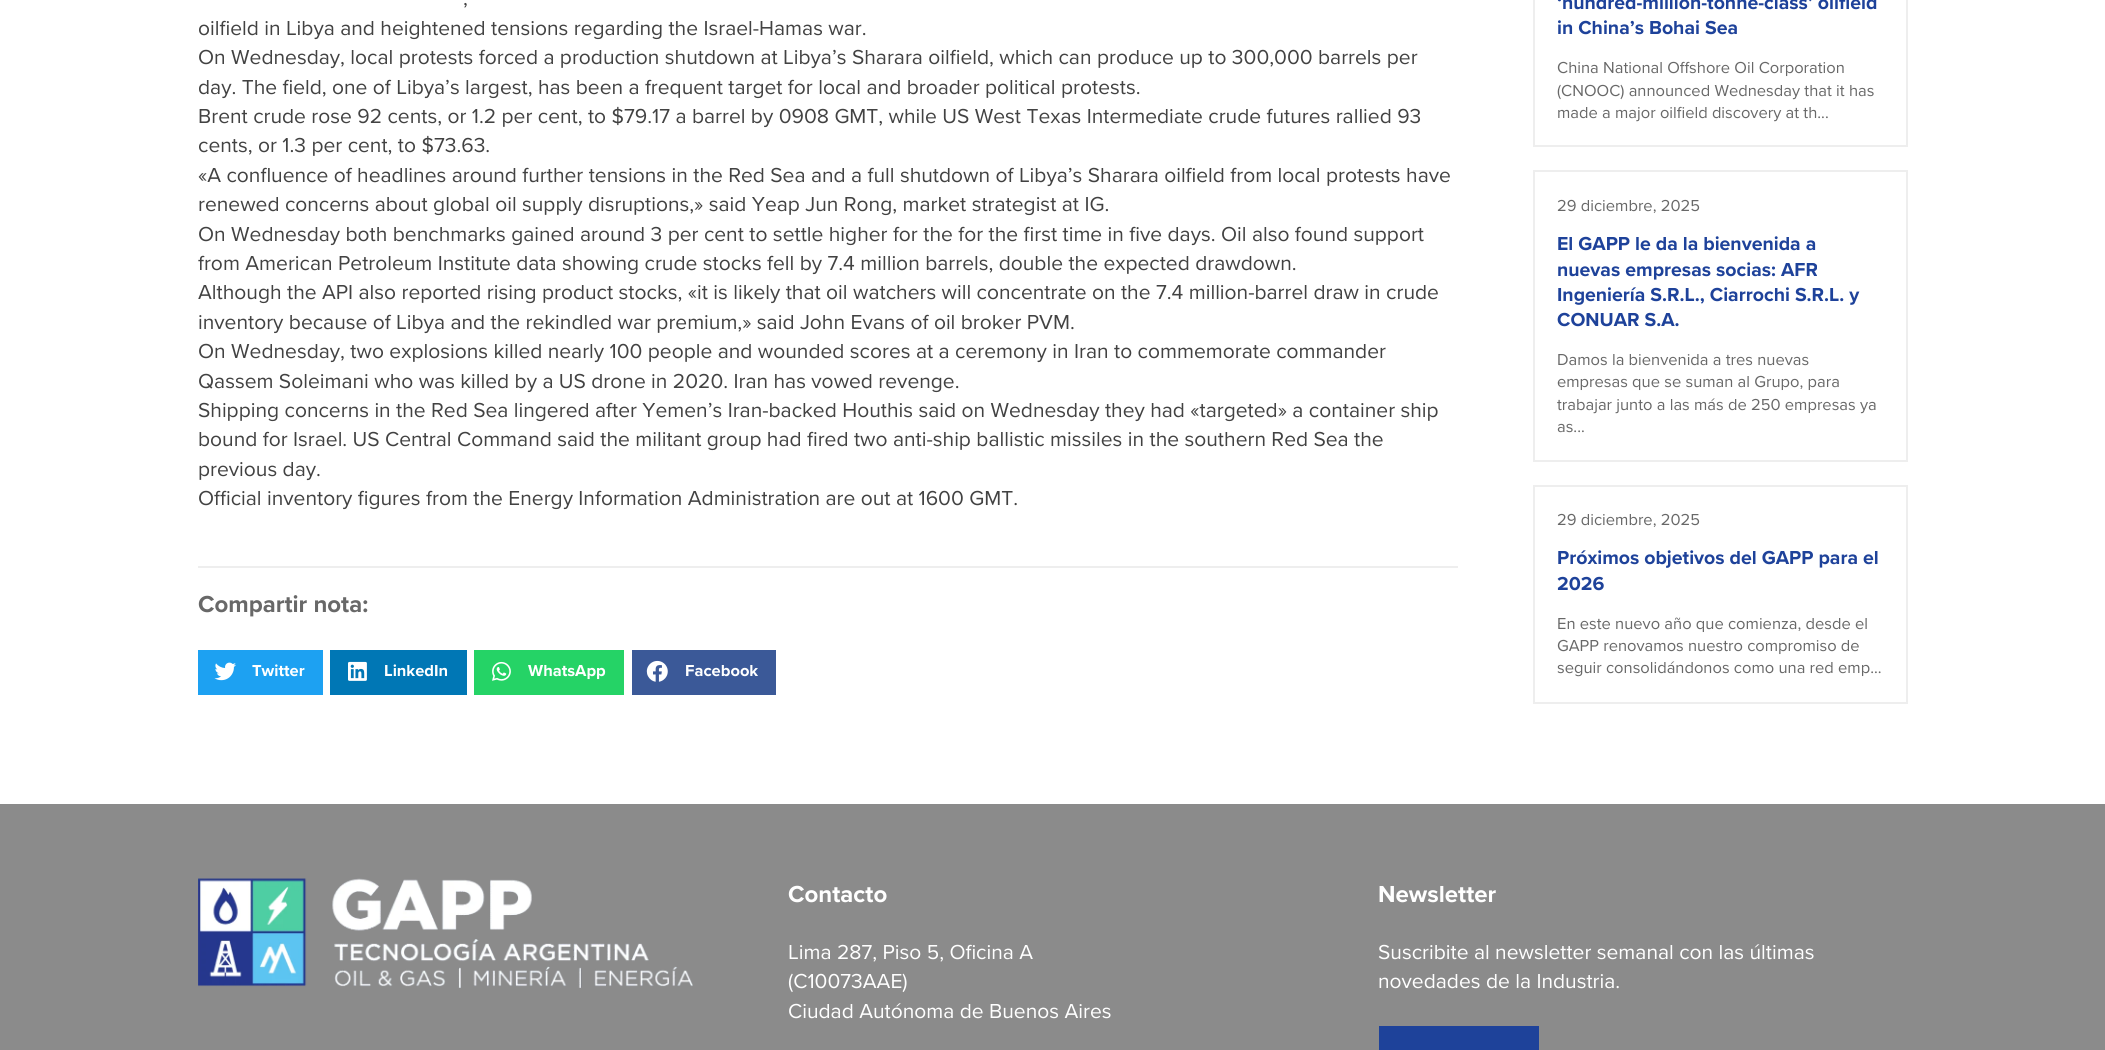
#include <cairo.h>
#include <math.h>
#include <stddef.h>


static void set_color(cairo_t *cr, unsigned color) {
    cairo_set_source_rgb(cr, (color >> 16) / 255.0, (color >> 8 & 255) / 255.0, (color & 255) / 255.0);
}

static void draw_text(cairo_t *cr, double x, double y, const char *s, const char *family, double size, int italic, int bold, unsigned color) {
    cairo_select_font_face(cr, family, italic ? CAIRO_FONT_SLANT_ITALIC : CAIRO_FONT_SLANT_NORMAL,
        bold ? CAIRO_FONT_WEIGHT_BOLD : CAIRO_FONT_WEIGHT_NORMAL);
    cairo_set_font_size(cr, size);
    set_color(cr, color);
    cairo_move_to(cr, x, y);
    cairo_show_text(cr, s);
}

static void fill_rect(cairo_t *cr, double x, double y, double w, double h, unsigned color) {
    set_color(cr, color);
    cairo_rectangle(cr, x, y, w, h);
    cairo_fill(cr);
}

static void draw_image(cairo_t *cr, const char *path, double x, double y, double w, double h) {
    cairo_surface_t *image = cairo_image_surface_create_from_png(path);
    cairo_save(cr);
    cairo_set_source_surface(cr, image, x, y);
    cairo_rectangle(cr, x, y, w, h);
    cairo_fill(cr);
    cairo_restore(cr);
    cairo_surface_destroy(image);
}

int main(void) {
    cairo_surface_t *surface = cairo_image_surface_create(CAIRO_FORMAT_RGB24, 2105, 1050);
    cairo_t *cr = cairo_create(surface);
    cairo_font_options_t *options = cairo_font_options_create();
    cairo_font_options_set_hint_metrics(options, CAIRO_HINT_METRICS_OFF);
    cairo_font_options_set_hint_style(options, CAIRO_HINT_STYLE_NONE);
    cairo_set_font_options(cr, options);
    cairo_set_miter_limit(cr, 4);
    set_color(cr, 0xFFFFFF);
    cairo_paint(cr);
    draw_text(cr, 463, 5, ",", "Proxima Nova", 21, 0, 0, 0x424242);
    draw_text(cr, 198, 35, "oilfield in Libya and heightened tensions regarding the Israel-Hamas war.", "Proxima Nova", 21, 0, 0, 0x424242);
    draw_text(cr, 198, 64, "On Wednesday, local protests forced a production shutdown at Libya’s Sharara oilfield, which can produce up to 300,000 barrels per", "Proxima Nova", 21, 0, 0, 0x424242);
    draw_text(cr, 198, 94, "day. The field, one of Libya’s largest, has been a frequent target for local and broader political protests.", "Proxima Nova", 21, 0, 0, 0x424242);
    draw_text(cr, 198, 123, "Brent crude rose 92 cents, or 1.2 per cent, to $79.17 a barrel by 0908 GMT, while US West Texas Intermediate crude futures rallied 93", "Proxima Nova", 21, 0, 0, 0x424242);
    draw_text(cr, 198, 152, "cents, or 1.3 per cent, to $73.63.", "Proxima Nova", 21, 0, 0, 0x424242);
    draw_text(cr, 198, 182, "«A confluence of headlines around further tensions in the Red Sea and a full shutdown of Libya’s Sharara oilfield from local protests have", "Proxima Nova", 21, 0, 0, 0x424242);
    draw_text(cr, 198, 211, "renewed concerns about global oil supply disruptions,» said Yeap Jun Rong, market strategist at IG.", "Proxima Nova", 21, 0, 0, 0x424242);
    draw_text(cr, 198, 241, "On Wednesday both benchmarks gained around 3 per cent to settle higher for the for the first time in five days. Oil also found support", "Proxima Nova", 21, 0, 0, 0x424242);
    draw_text(cr, 198, 270, "from American Petroleum Institute data showing crude stocks fell by 7.4 million barrels, double the expected drawdown.", "Proxima Nova", 21, 0, 0, 0x424242);
    draw_text(cr, 198, 299, "Although the API also reported rising product stocks, «it is likely that oil watchers will concentrate on the 7.4 million-barrel draw in crude", "Proxima Nova", 21, 0, 0, 0x424242);
    draw_text(cr, 198, 329, "inventory because of Libya and the rekindled war premium,» said John Evans of oil broker PVM.", "Proxima Nova", 21, 0, 0, 0x424242);
    draw_text(cr, 198, 358, "On Wednesday, two explosions killed nearly 100 people and wounded scores at a ceremony in Iran to commemorate commander", "Proxima Nova", 21, 0, 0, 0x424242);
    draw_text(cr, 198, 388, "Qassem Soleimani who was killed by a US drone in 2020. Iran has vowed revenge.", "Proxima Nova", 21, 0, 0, 0x424242);
    draw_text(cr, 198, 417, "Shipping concerns in the Red Sea lingered after Yemen’s Iran-backed Houthis said on Wednesday they had «targeted» a container ship", "Proxima Nova", 21, 0, 0, 0x424242);
    draw_text(cr, 198, 446, "bound for Israel. US Central Command said the militant group had fired two anti-ship ballistic missiles in the southern Red Sea the", "Proxima Nova", 21, 0, 0, 0x424242);
    draw_text(cr, 198, 476, "previous day.", "Proxima Nova", 21, 0, 0, 0x424242);
    draw_text(cr, 198, 505, "Official inventory figures from the Energy Information Administration are out at 1600 GMT.", "Proxima Nova", 21, 0, 0, 0x424242);
    fill_rect(cr, 198, 566, 1260, 2, 0xEEEEEE);
    draw_text(cr, 198, 612, "Compartir nota:", "Proxima Nova", 24, 0, 1, 0x686868);
    fill_rect(cr, 198, 650, 125, 45, 0x1DA1F2);
    draw_image(cr, "assets/img1.png", 214, 662, 22, 19);
    draw_text(cr, 252, 676, "Twitter", "Proxima Nova", 16.5, 0, 1, 0xFFFFFF);
    fill_rect(cr, 330, 650, 137, 45, 0x0077B5);
    draw_image(cr, "assets/img2.png", 348, 661, 19, 20);
    draw_text(cr, 384, 676, "LinkedIn", "Proxima Nova", 16.5, 0, 1, 0xFFFFFF);
    fill_rect(cr, 474, 650, 150, 45, 0x25D366);
    draw_image(cr, "assets/img3.png", 492, 661, 19, 20);
    draw_text(cr, 528, 676, "WhatsApp", "Proxima Nova", 16.5, 0, 1, 0xFFFFFF);
    fill_rect(cr, 632, 650, 144, 45, 0x3B5998);
    draw_image(cr, "assets/img4.png", 646, 660, 22, 22);
    draw_text(cr, 685, 676, "Facebook", "Proxima Nova", 16.5, 0, 1, 0xFFFFFF);
    cairo_rectangle(cr, 1534, -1, 373, 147);
    set_color(cr, 0xEEEEEE);
    cairo_stroke(cr);
    draw_text(cr, 1557, 9, "‘hundred-million-tonne-class’ oilfield", "Proxima Nova", 19.5, 0, 1, 0x1E429A);
    draw_text(cr, 1557, 34, "in China’s Bohai Sea", "Proxima Nova", 19.5, 0, 1, 0x1E429A);
    draw_text(cr, 1557, 73, "China National Offshore Oil Corporation", "Proxima Nova", 16.5, 0, 0, 0x686868);
    draw_text(cr, 1557, 96, "(CNOOC) announced Wednesday that it has", "Proxima Nova", 16.5, 0, 0, 0x686868);
    draw_text(cr, 1557, 118, "made a major oilfield discovery at th...", "Proxima Nova", 16.5, 0, 0, 0x686868);
    cairo_rectangle(cr, 1534, 171, 373, 290);
    set_color(cr, 0xEEEEEE);
    cairo_stroke(cr);
    draw_text(cr, 1557, 211, "29 diciembre, 2025", "Proxima Nova", 16.5, 0, 0, 0x686868);
    draw_text(cr, 1557, 250, "El GAPP le da la bienvenida a", "Proxima Nova", 19.5, 0, 1, 0x1E429A);
    draw_text(cr, 1557, 276, "nuevas empresas socias: AFR", "Proxima Nova", 19.5, 0, 1, 0x1E429A);
    draw_text(cr, 1557, 301, "Ingeniería S.R.L., Ciarrochi S.R.L. y", "Proxima Nova", 19.5, 0, 1, 0x1E429A);
    draw_text(cr, 1557, 326, "CONUAR S.A.", "Proxima Nova", 19.5, 0, 1, 0x1E429A);
    draw_text(cr, 1557, 365, "Damos la bienvenida a tres nuevas", "Proxima Nova", 16.5, 0, 0, 0x686868);
    draw_text(cr, 1557, 387, "empresas que se suman al Grupo, para", "Proxima Nova", 16.5, 0, 0, 0x686868);
    draw_text(cr, 1557, 410, "trabajar junto a las más de 250 empresas ya", "Proxima Nova", 16.5, 0, 0, 0x686868);
    draw_text(cr, 1557, 432, "as...", "Proxima Nova", 16.5, 0, 0, 0x686868);
    cairo_rectangle(cr, 1534, 486, 373, 217);
    set_color(cr, 0xEEEEEE);
    cairo_stroke(cr);
    draw_text(cr, 1557, 525, "29 diciembre, 2025", "Proxima Nova", 16.5, 0, 0, 0x686868);
    draw_text(cr, 1557, 564, "Próximos objetivos del GAPP para el", "Proxima Nova", 19.5, 0, 1, 0x1E429A);
    draw_text(cr, 1557, 590, "2026", "Proxima Nova", 19.5, 0, 1, 0x1E429A);
    draw_text(cr, 1557, 629, "En este nuevo año que comienza, desde el", "Proxima Nova", 16.5, 0, 0, 0x686868);
    draw_text(cr, 1557, 651, "GAPP renovamos nuestro compromiso de", "Proxima Nova", 16.5, 0, 0, 0x686868);
    draw_text(cr, 1557, 673, "seguir consolidándonos como una red emp...", "Proxima Nova", 16.5, 0, 0, 0x686868);
    fill_rect(cr, 0, 804, 2105, 246, 0x8B8B8B);
    draw_image(cr, "assets/img5.png", 198, 878, 495, 110);
    draw_text(cr, 788, 902, "Contacto", "Proxima Nova", 24, 0, 1, 0xFFFFFF);
    draw_text(cr, 788, 959, "Lima 287, Piso 5, Oficina A", "Proxima Nova", 21, 0, 0, 0xFFFFFF);
    draw_text(cr, 788, 988, "(C10073AAE)", "Proxima Nova", 21, 0, 0, 0xFFFFFF);
    draw_text(cr, 788, 1018, "Ciudad Autónoma de Buenos Aires", "Proxima Nova", 21, 0, 0, 0xFFFFFF);
    draw_text(cr, 1378, 902, "Newsletter", "Proxima Nova", 24, 0, 1, 0xFFFFFF);
    draw_text(cr, 1378, 959, "Suscribite al newsletter semanal con las últimas", "Proxima Nova", 21, 0, 0, 0xFFFFFF);
    draw_text(cr, 1378, 988, "novedades de la Industria.", "Proxima Nova", 21, 0, 0, 0xFFFFFF);
    fill_rect(cr, 1379, 1026, 160, 24, 0x1E429A);
    cairo_surface_write_to_png(surface, "output.png");
    cairo_font_options_destroy(options);
    cairo_destroy(cr);
    cairo_surface_destroy(surface);
    return 0;
}
